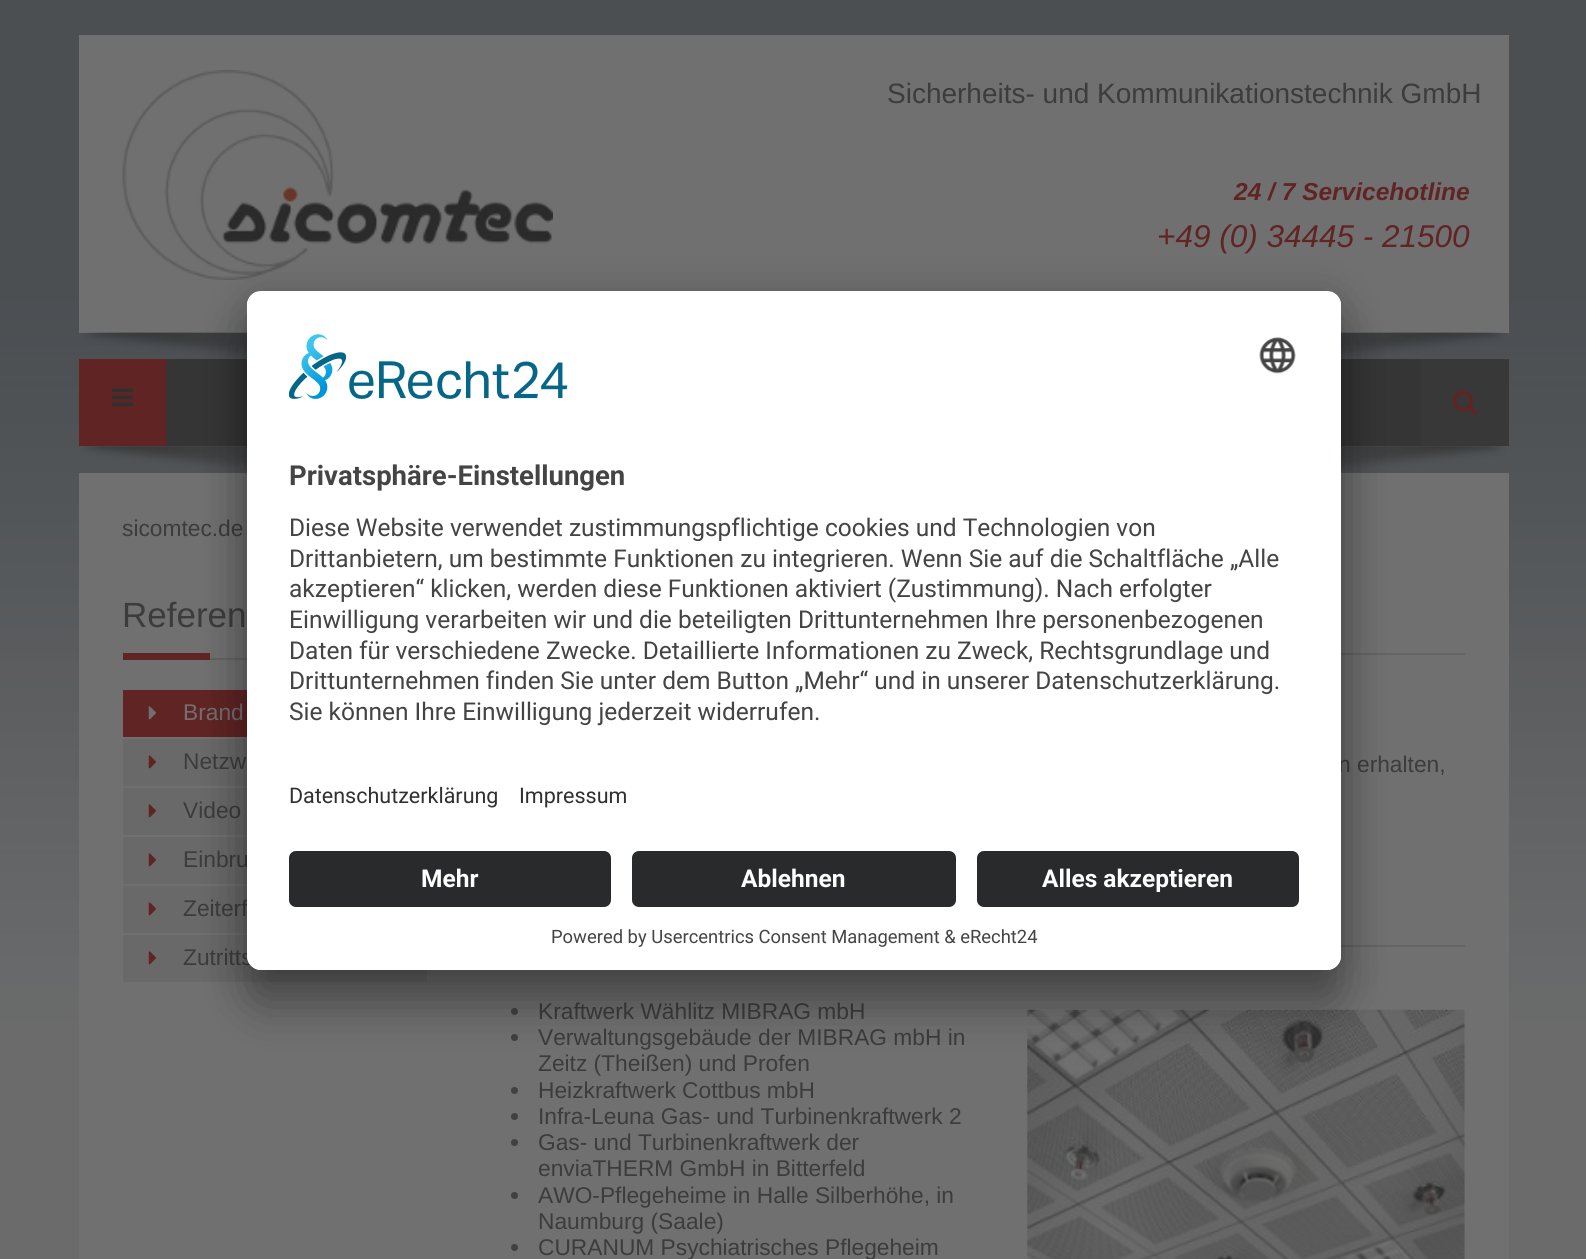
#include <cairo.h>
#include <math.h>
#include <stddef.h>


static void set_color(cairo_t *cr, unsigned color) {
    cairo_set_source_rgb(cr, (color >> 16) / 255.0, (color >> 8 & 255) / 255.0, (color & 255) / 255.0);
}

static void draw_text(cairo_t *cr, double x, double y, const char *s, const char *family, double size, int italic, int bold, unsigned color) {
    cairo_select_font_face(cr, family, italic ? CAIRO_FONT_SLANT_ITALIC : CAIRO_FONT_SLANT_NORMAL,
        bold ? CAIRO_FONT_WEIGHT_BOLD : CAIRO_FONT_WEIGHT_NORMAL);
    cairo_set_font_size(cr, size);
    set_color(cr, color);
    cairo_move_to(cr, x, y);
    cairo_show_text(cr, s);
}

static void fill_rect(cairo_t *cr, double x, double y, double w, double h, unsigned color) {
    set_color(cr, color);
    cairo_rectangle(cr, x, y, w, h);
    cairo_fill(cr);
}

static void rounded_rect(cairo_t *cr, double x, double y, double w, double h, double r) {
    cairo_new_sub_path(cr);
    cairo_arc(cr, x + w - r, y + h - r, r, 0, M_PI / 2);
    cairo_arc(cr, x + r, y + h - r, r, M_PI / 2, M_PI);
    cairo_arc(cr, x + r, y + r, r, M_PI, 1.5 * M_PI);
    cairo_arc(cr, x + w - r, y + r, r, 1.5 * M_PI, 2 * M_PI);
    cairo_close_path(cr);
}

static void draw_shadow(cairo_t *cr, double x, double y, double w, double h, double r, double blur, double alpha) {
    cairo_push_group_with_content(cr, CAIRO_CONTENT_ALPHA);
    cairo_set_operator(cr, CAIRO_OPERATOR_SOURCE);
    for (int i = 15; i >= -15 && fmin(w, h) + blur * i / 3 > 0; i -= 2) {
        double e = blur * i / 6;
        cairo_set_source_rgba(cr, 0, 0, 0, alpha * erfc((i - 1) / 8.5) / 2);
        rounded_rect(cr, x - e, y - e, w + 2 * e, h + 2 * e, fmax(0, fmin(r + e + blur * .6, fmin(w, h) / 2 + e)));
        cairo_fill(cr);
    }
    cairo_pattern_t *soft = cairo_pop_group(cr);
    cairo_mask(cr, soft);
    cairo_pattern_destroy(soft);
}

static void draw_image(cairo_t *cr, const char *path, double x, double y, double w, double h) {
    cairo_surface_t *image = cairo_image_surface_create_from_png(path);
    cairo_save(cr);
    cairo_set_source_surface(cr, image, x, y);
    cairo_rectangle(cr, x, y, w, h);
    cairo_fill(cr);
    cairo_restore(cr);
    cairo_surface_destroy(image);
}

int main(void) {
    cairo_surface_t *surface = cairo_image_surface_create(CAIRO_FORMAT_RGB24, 1586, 1259);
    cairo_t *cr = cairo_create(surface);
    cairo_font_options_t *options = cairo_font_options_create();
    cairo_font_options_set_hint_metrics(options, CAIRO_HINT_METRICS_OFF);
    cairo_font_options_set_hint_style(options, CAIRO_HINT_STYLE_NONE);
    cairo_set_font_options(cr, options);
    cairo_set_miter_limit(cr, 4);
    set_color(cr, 0x6B6B6C);
    cairo_paint(cr);
    draw_image(cr, "assets/img1.png", 0, 0, 1586, 1022);
    fill_rect(cr, 79, 35, 1430, 298, 0x707070);
    draw_image(cr, "assets/img2.png", 122, 70, 431, 210);
    draw_text(cr, 887, 103, "Sicherheits- und Kommunikationstechnik GmbH", "Liberation Sans", 28, 0, 0, 0x3C3C3C);
    draw_text(cr, 1234, 200, "24 / 7 Servicehotline", "Liberation Sans", 24.5, 1, 1, 0x612424);
    draw_text(cr, 1157, 247, "+49 (0) 34445 - 21500", "Liberation Sans", 31.5, 1, 0, 0x612424);
    draw_image(cr, "assets/img3.png", 81, 332, 1425, 27);
    fill_rect(cr, 166, 359, 1255, 87, 0x353535);
    fill_rect(cr, 79, 359, 87, 87, 0x612424);
    draw_image(cr, "assets/img4.png", 112, 388, 21, 18);
    fill_rect(cr, 1421, 359, 88, 87, 0x383838);
    draw_image(cr, "assets/img5.png", 1452, 390, 25, 25);
    draw_image(cr, "assets/img6.png", 81, 446, 1425, 27);
    fill_rect(cr, 79, 473, 1430, 786, 0x707070);
    draw_text(cr, 122, 536, "sicomtec.de", "Liberation Sans", 22.75, 0, 0, 0x3C3C3C);
    fill_rect(cr, 210, 658, 37, 2, 0x646464);
    draw_text(cr, 122, 627, "Referen", "Liberation Sans", 35, 0, 0, 0x3C3C3C);
    fill_rect(cr, 123, 653, 87, 7, 0x612424);
    fill_rect(cr, 123, 690, 124, 47, 0x612424);
    draw_image(cr, "assets/img7.png", 148, 706, 8, 14);
    draw_text(cr, 183, 720, "Brand", "Liberation Sans", 22.75, 0, 0, 0x707070);
    fill_rect(cr, 123, 739, 124, 47, 0x696969);
    draw_image(cr, "assets/img8.png", 148, 755, 8, 14);
    draw_text(cr, 183, 769, "Netzw", "Liberation Sans", 22.75, 0, 0, 0x3C3C3C);
    fill_rect(cr, 123, 788, 124, 47, 0x696969);
    draw_image(cr, "assets/img8.png", 148, 804, 8, 14);
    draw_text(cr, 183, 818, "Video", "Liberation Sans", 22.75, 0, 0, 0x3C3C3C);
    fill_rect(cr, 123, 837, 124, 47, 0x696969);
    draw_image(cr, "assets/img8.png", 148, 853, 8, 14);
    draw_text(cr, 183, 867, "Einbru", "Liberation Sans", 22.75, 0, 0, 0x3C3C3C);
    fill_rect(cr, 123, 886, 124, 47, 0x696969);
    draw_image(cr, "assets/img8.png", 148, 902, 8, 14);
    draw_text(cr, 183, 916, "Zeiterf", "Liberation Sans", 22.75, 0, 0, 0x3C3C3C);
    fill_rect(cr, 123, 935, 304, 47, 0x696969);
    draw_image(cr, "assets/img8.png", 148, 951, 8, 14);
    draw_text(cr, 183, 965, "Zutritts", "Liberation Sans", 22.75, 0, 0, 0x3C3C3C);
    fill_rect(cr, 1341, 653, 124, 2, 0x646464);
    draw_text(cr, 1338, 772, "n erhalten,", "Liberation Sans", 22.75, 0, 0, 0x3C3C3C);
    fill_rect(cr, 1341, 945, 124, 2, 0x646464);
    set_color(cr, 0x414141);
    cairo_new_path(cr);
    cairo_arc(cr, 514.5, 1011.5, 3.5, 0, 2 * M_PI);
    cairo_fill(cr);
    draw_text(cr, 538, 1019, "Kraftwerk Wählitz MIBRAG mbH", "Liberation Sans", 22.75, 0, 0, 0x3C3C3C);
    set_color(cr, 0x414141);
    cairo_new_path(cr);
    cairo_arc(cr, 514.5, 1037.5, 3.5, 0, 2 * M_PI);
    cairo_fill(cr);
    draw_text(cr, 538, 1045, "Verwaltungsgebäude der MIBRAG mbH in", "Liberation Sans", 22.75, 0, 0, 0x3C3C3C);
    draw_text(cr, 538, 1071, "Zeitz (Theißen) und Profen", "Liberation Sans", 22.75, 0, 0, 0x3C3C3C);
    set_color(cr, 0x414141);
    cairo_new_path(cr);
    cairo_arc(cr, 514.5, 1090.5, 3.5, 0, 2 * M_PI);
    cairo_fill(cr);
    draw_text(cr, 538, 1098, "Heizkraftwerk Cottbus mbH", "Liberation Sans", 22.75, 0, 0, 0x3C3C3C);
    set_color(cr, 0x414141);
    cairo_new_path(cr);
    cairo_arc(cr, 514.5, 1116.5, 3.5, 0, 2 * M_PI);
    cairo_fill(cr);
    draw_text(cr, 538, 1124, "Infra-Leuna Gas- und Turbinenkraftwerk 2", "Liberation Sans", 22.75, 0, 0, 0x3C3C3C);
    set_color(cr, 0x414141);
    cairo_new_path(cr);
    cairo_arc(cr, 514.5, 1142.5, 3.5, 0, 2 * M_PI);
    cairo_fill(cr);
    draw_text(cr, 538, 1150, "Gas- und Turbinenkraftwerk der", "Liberation Sans", 22.75, 0, 0, 0x3C3C3C);
    draw_text(cr, 538, 1176, "enviaTHERM GmbH in Bitterfeld", "Liberation Sans", 22.75, 0, 0, 0x3C3C3C);
    set_color(cr, 0x414141);
    cairo_new_path(cr);
    cairo_arc(cr, 514.5, 1195.5, 3.5, 0, 2 * M_PI);
    cairo_fill(cr);
    draw_text(cr, 538, 1203, "AWO-Pflegeheime in Halle Silberhöhe, in", "Liberation Sans", 22.75, 0, 0, 0x3C3C3C);
    draw_text(cr, 538, 1229, "Naumburg (Saale)", "Liberation Sans", 22.75, 0, 0, 0x3C3C3C);
    set_color(cr, 0x414141);
    cairo_new_path(cr);
    cairo_arc(cr, 514.5, 1247.5, 3.5, 0, 2 * M_PI);
    cairo_fill(cr);
    draw_text(cr, 538, 1255, "CURANUM Psychiatrisches Pflegeheim", "Liberation Sans", 22.75, 0, 0, 0x3C3C3C);
    draw_image(cr, "assets/img9.png", 1027, 1009, 438, 250);
    set_color(cr, 0x000000);
    draw_shadow(cr, 247, 326, 1094, 679, 14, 24.5, 0.3);
    draw_shadow(cr, 247, 299, 1094, 679, 14, 23, 0.22);
    set_color(cr, 0xFFFFFF);
    rounded_rect(cr, 247, 291, 1094, 679, 14);
    cairo_fill(cr);
    cairo_save(cr);
    rounded_rect(cr, 247, 291, 1094, 679, 14);
    cairo_clip(cr);
    cairo_new_path(cr);
    cairo_move_to(cr, 261, 291);
    cairo_line_to(cr, 1327, 291);
    cairo_curve_to(cr, 1334.5, 291, 1341, 297.5, 1341, 305);
    cairo_line_to(cr, 1341, 837);
    cairo_line_to(cr, 247, 837);
    cairo_line_to(cr, 247, 305);
    cairo_curve_to(cr, 247, 297.5, 253.5, 291, 261, 291);
    cairo_close_path(cr);
    cairo_clip(cr);
    fill_rect(cr, 247, 292, 1094, 545, 0xFFFFFF);
    cairo_restore(cr);
    draw_image(cr, "assets/img10.png", 289, 334, 279, 65);
    draw_image(cr, "assets/img11.png", 1259, 337, 37, 37);
    draw_text(cr, 289, 485, "Privatsphäre-Einstellungen", "Roboto", 27.5, 0, 1, 0x444444);
    draw_text(cr, 289, 536, "Diese Website verwendet zustimmungspflichtige cookies und Technologien von", "Roboto", 24.5, 0, 0, 0x444444);
    draw_text(cr, 289, 567, "Drittanbietern, um bestimmte Funktionen zu integrieren. Wenn Sie auf die Schaltfläche „Alle", "Roboto", 24.5, 0, 0, 0x444444);
    draw_text(cr, 289, 597, "akzeptieren“ klicken, werden diese Funktionen aktiviert (Zustimmung). Nach erfolgter", "Roboto", 24.5, 0, 0, 0x444444);
    draw_text(cr, 289, 628, "Einwilligung verarbeiten wir und die beteiligten Drittunternehmen Ihre personenbezogenen", "Roboto", 24.5, 0, 0, 0x444444);
    draw_text(cr, 289, 659, "Daten für verschiedene Zwecke. Detaillierte Informationen zu Zweck, Rechtsgrundlage und", "Roboto", 24.5, 0, 0, 0x444444);
    draw_text(cr, 289, 689, "Drittunternehmen finden Sie unter dem Button „Mehr“ und in unserer Datenschutzerklärung.", "Roboto", 24.5, 0, 0, 0x444444);
    draw_text(cr, 289, 720, "Sie können Ihre Einwilligung jederzeit widerrufen.", "Roboto", 24.5, 0, 0, 0x444444);
    draw_text(cr, 289, 803, "Datenschutzerklärung", "Roboto", 21.5, 0, 0, 0x303030);
    draw_text(cr, 519, 803, "Impressum", "Roboto", 21.5, 0, 0, 0x303030);
    set_color(cr, 0xFFFFFF);
    cairo_new_path(cr);
    cairo_move_to(cr, 247, 837);
    cairo_line_to(cr, 1341, 837);
    cairo_line_to(cr, 1341, 956);
    cairo_curve_to(cr, 1341, 963.5, 1334.5, 970, 1327, 970);
    cairo_line_to(cr, 261, 970);
    cairo_curve_to(cr, 253.5, 970, 247, 963.5, 247, 956);
    cairo_close_path(cr);
    cairo_fill(cr);
    set_color(cr, 0x292A2B);
    rounded_rect(cr, 289, 851, 322, 56, 7);
    cairo_fill(cr);
    draw_text(cr, 421, 887, "Mehr", "Roboto", 24.5, 0, 1, 0xFFFFFF);
    set_color(cr, 0x292A2B);
    rounded_rect(cr, 632, 851, 324, 56, 7);
    cairo_fill(cr);
    draw_text(cr, 741, 887, "Ablehnen", "Roboto", 24.5, 0, 1, 0xFFFFFF);
    set_color(cr, 0x292A2B);
    rounded_rect(cr, 977, 851, 322, 56, 7);
    cairo_fill(cr);
    draw_text(cr, 1042, 887, "Alles akzeptieren", "Roboto", 24.5, 0, 1, 0xFFFFFF);
    draw_text(cr, 551, 943, "Powered by Usercentrics Consent Management & eRecht24", "Roboto", 18.4, 0, 0, 0x444444);
    cairo_surface_write_to_png(surface, "output.png");
    cairo_font_options_destroy(options);
    cairo_destroy(cr);
    cairo_surface_destroy(surface);
    return 0;
}
